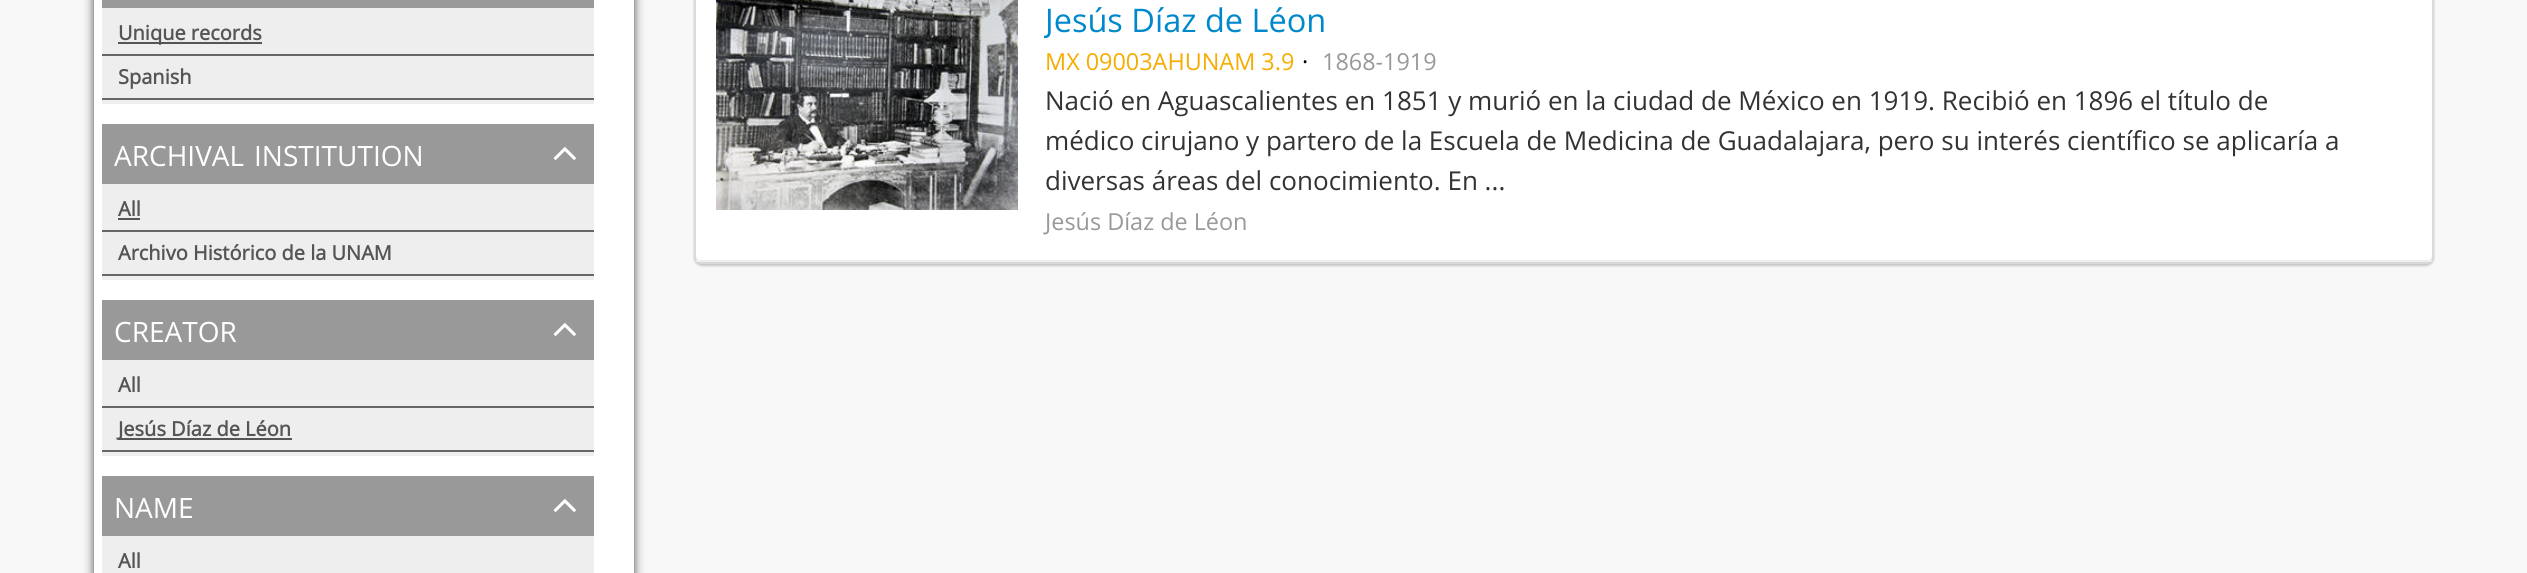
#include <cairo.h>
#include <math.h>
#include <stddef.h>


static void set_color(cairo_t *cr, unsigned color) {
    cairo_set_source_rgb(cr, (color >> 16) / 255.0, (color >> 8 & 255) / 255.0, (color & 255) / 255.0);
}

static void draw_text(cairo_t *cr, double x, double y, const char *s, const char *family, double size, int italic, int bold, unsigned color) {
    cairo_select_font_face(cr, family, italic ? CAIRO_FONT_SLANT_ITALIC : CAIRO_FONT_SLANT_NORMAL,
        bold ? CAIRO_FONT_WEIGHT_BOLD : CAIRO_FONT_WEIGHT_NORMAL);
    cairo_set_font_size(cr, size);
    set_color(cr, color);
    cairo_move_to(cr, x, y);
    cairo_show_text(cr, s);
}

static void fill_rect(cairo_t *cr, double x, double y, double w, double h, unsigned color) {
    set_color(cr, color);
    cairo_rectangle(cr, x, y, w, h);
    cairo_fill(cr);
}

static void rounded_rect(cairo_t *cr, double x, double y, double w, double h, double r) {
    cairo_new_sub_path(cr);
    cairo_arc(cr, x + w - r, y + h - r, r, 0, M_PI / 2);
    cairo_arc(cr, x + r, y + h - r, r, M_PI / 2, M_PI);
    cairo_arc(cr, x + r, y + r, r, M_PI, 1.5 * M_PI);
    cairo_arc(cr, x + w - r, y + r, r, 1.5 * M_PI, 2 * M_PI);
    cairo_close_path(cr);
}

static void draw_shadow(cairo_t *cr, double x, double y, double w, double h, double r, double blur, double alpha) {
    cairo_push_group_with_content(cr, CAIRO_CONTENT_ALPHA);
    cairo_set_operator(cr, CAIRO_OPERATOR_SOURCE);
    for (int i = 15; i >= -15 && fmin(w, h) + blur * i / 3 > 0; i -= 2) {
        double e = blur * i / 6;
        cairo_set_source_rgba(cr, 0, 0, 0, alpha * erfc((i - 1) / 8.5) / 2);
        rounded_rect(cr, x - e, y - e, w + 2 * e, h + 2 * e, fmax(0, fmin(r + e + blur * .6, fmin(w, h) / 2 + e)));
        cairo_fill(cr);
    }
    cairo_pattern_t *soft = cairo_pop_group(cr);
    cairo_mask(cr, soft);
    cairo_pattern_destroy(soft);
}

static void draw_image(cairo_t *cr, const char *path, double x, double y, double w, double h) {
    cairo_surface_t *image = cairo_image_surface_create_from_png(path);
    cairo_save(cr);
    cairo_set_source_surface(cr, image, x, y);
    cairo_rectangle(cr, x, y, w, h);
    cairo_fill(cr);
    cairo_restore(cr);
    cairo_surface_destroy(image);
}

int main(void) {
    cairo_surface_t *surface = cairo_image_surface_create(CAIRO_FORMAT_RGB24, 2527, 573);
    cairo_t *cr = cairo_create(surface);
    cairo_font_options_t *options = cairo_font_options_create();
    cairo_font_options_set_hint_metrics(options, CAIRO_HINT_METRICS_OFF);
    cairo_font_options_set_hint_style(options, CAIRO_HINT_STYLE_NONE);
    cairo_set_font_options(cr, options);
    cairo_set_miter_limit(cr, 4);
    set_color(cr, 0xF8F8F8);
    cairo_paint(cr);
    set_color(cr, 0x444444);
    draw_shadow(cr, 94, -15, 540, 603, 0, 5, 1);
    fill_rect(cr, 94, 0, 540, 573, 0xFFFFFF);
    fill_rect(cr, 102, 0, 492, 8, 0x999999);
    fill_rect(cr, 102, 8, 492, 96, 0xEEEEEE);
    fill_rect(cr, 102, 54, 492, 2, 0x666666);
    fill_rect(cr, 118, 42, 144, 2, 0x555555);
    draw_text(cr, 118, 40, "Unique records", "Open Sans", 20, 0, 1, 0x555555);
    fill_rect(cr, 102, 98, 492, 2, 0x666666);
    draw_text(cr, 118, 84, "Spanish", "Open Sans", 20, 0, 1, 0x555555);
    fill_rect(cr, 102, 124, 492, 60, 0x999999);
    draw_text(cr, 114, 166, "ARCHIVAL", "Open Sans", 28, 0, 0, 0xFFFFFF);
    draw_text(cr, 254, 166, "INSTITUTION", "Open Sans", 28, 0, 0, 0xFFFFFF);
    draw_image(cr, "assets/img1.png", 553, 147, 23, 13);
    fill_rect(cr, 102, 184, 492, 96, 0xEEEEEE);
    fill_rect(cr, 102, 230, 492, 2, 0x666666);
    draw_text(cr, 118, 216, "All", "Open Sans", 20, 0, 1, 0x555555);
    fill_rect(cr, 118, 218, 22, 2, 0x555555);
    fill_rect(cr, 102, 274, 492, 2, 0x666666);
    draw_text(cr, 118, 260, "Archivo Histórico de la UNAM", "Open Sans", 20, 0, 1, 0x555555);
    fill_rect(cr, 102, 300, 492, 60, 0x999999);
    draw_text(cr, 114, 342, "CREATOR", "Open Sans", 28, 0, 0, 0xFFFFFF);
    draw_image(cr, "assets/img1.png", 553, 323, 23, 13);
    fill_rect(cr, 102, 360, 492, 96, 0xEEEEEE);
    fill_rect(cr, 102, 406, 492, 2, 0x666666);
    draw_text(cr, 118, 392, "All", "Open Sans", 20, 0, 1, 0x555555);
    fill_rect(cr, 102, 450, 492, 2, 0x666666);
    fill_rect(cr, 118, 438, 174, 2, 0x555555);
    draw_text(cr, 118, 436, "Jesús Díaz de Léon", "Open Sans", 20, 0, 1, 0x555555);
    fill_rect(cr, 102, 476, 492, 60, 0x999999);
    draw_text(cr, 114, 518, "NAME", "Open Sans", 28, 0, 0, 0xFFFFFF);
    draw_image(cr, "assets/img1.png", 553, 499, 23, 13);
    fill_rect(cr, 102, 536, 492, 37, 0xEEEEEE);
    draw_text(cr, 118, 568, "All", "Open Sans", 20, 0, 1, 0x555555);
    set_color(cr, 0x000000);
    draw_shadow(cr, 694, -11, 1740, 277, 8, 1, 0.2);
    set_color(cr, 0xFFFFFF);
    rounded_rect(cr, 695, -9, 1738, 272, 7);
    cairo_fill_preserve(cr);
    set_color(cr, 0xD9D9D9);
    cairo_stroke(cr);
    fill_rect(cr, 696, 260, 1736, 2, 0xEEEEEE);
    draw_image(cr, "assets/img2.png", 716, 0, 302, 210);
    cairo_save(cr);
    cairo_rectangle(cr, 1044, 0, 1306, 40);
    cairo_clip(cr);
    draw_text(cr, 1045, 32, "Jesús Díaz de Léon", "Open Sans", 32.5, 0, 0, 0x0088CC);
    cairo_restore(cr);
    draw_text(cr, 1045, 70, "MX 09003AHUNAM 3.9", "Open Sans", 23.4, 0, 0, 0xF6AC00);
    draw_text(cr, 1302, 70, "·", "Open Sans", 23.4, 0, 0, 0x000000);
    draw_text(cr, 1322, 70, "1868-1919", "Open Sans", 23.4, 0, 0, 0x999999);
    draw_text(cr, 1045, 110, "Nació en Aguascalientes en 1851 y murió en la ciudad de México en 1919. Recibió en 1896 el título de", "Open Sans", 26, 0, 0, 0x333333);
    draw_text(cr, 1045, 150, "médico cirujano y partero de la Escuela de Medicina de Guadalajara, pero su interés científico se aplicaría a", "Open Sans", 26, 0, 0, 0x333333);
    draw_text(cr, 1045, 190, "diversas áreas del conocimiento. En ...", "Open Sans", 26, 0, 0, 0x333333);
    draw_text(cr, 1045, 230, "Jesús Díaz de Léon", "Open Sans", 23.4, 0, 0, 0x999999);
    cairo_surface_write_to_png(surface, "output.png");
    cairo_font_options_destroy(options);
    cairo_destroy(cr);
    cairo_surface_destroy(surface);
    return 0;
}
